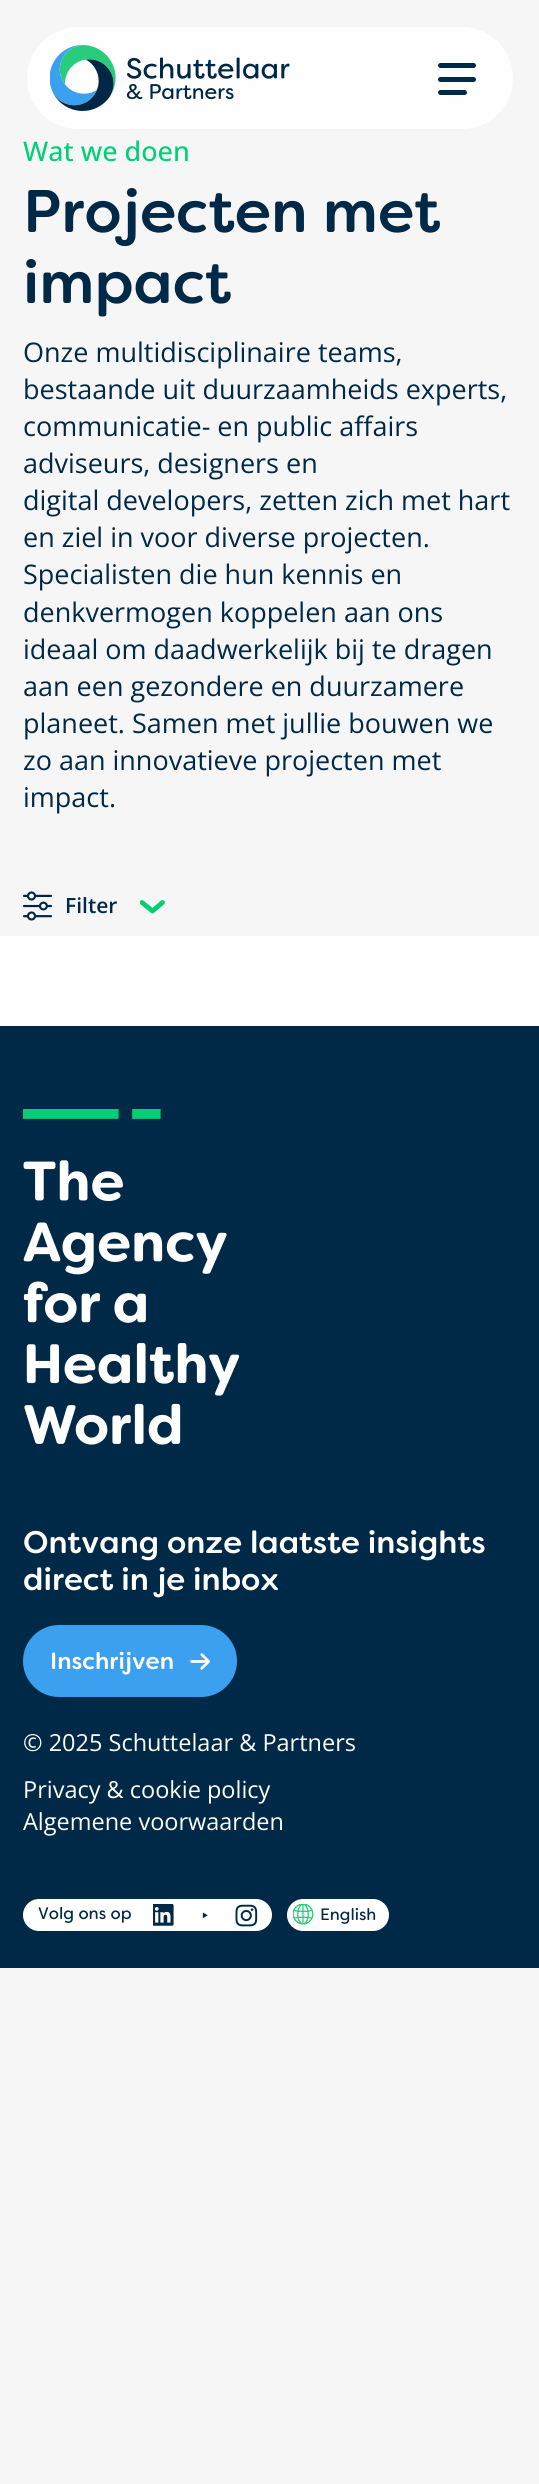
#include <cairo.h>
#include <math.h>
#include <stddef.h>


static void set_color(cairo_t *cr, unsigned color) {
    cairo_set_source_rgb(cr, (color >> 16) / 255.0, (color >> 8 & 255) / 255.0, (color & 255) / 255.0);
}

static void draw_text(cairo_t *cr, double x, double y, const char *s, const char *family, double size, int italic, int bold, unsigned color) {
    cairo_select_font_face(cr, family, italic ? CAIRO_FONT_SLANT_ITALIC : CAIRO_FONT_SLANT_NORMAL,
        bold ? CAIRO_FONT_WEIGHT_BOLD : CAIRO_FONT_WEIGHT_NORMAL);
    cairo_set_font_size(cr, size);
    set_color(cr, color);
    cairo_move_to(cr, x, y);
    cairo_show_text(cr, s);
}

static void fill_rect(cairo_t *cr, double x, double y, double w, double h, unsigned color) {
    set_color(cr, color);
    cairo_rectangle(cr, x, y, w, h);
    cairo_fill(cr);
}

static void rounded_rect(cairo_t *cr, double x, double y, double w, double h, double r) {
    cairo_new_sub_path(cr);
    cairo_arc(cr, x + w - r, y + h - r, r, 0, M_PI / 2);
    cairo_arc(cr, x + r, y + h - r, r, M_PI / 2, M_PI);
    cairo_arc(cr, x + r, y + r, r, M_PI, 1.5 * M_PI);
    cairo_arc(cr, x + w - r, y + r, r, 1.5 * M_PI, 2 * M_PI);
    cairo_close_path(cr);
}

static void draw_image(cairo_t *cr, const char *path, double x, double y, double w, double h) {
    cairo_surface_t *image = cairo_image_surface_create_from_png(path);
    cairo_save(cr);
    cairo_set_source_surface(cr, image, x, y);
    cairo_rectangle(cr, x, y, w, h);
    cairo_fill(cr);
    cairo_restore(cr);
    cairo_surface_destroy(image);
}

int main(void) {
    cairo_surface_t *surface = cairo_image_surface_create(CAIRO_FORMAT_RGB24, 539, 2484);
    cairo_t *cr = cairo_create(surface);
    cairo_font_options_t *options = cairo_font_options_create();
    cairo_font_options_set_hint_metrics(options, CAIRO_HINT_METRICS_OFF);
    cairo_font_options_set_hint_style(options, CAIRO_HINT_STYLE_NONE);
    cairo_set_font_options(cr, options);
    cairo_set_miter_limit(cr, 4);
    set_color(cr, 0xF6F6F6);
    cairo_paint(cr);
    cairo_set_source_rgba(cr, 1, 1, 1, 0.9);
    rounded_rect(cr, 27, 27, 486, 102, 51);
    cairo_fill(cr);
    draw_image(cr, "assets/img1.png", 50, 45, 240, 66);
    set_color(cr, 0x002948);
    rounded_rect(cr, 438, 63, 38, 5, 2.5);
    cairo_fill(cr);
    rounded_rect(cr, 438, 77, 38, 5, 2.5);
    cairo_fill(cr);
    rounded_rect(cr, 438, 90, 29, 5, 2.5);
    cairo_fill(cr);
    draw_text(cr, 23, 161, "Wat we doen", "Open Sans Medium", 27, 0, 0, 0x00CF75);
    draw_text(cr, 23, 232, "Projecten met", "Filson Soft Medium", 60, 0, 0, 0x002948);
    draw_text(cr, 23, 303, "impact", "Filson Soft Medium", 60, 0, 0, 0x002948);
    draw_text(cr, 23, 362, "Onze multidisciplinaire teams,", "Open Sans", 27, 0, 0, 0x002948);
    draw_text(cr, 23, 399, "bestaande uit duurzaamheids experts,", "Open Sans", 27, 0, 0, 0x002948);
    draw_text(cr, 23, 436, "communicatie- en public affairs", "Open Sans", 27, 0, 0, 0x002948);
    draw_text(cr, 23, 473, "adviseurs, designers en", "Open Sans", 27, 0, 0, 0x002948);
    draw_text(cr, 23, 510, "digital developers, zetten zich met hart", "Open Sans", 27, 0, 0, 0x002948);
    draw_text(cr, 23, 547, "en ziel in voor diverse projecten.", "Open Sans", 27, 0, 0, 0x002948);
    draw_text(cr, 23, 584, "Specialisten die hun kennis en", "Open Sans", 27, 0, 0, 0x002948);
    draw_text(cr, 23, 622, "denkvermogen koppelen aan ons", "Open Sans", 27, 0, 0, 0x002948);
    draw_text(cr, 23, 659, "ideaal om daadwerkelijk bij te dragen", "Open Sans", 27, 0, 0, 0x002948);
    draw_text(cr, 23, 696, "aan een gezondere en duurzamere", "Open Sans", 27, 0, 0, 0x002948);
    draw_text(cr, 23, 733, "planeet. Samen met jullie bouwen we", "Open Sans", 27, 0, 0, 0x002948);
    draw_text(cr, 23, 770, "zo aan innovatieve projecten met", "Open Sans", 27, 0, 0, 0x002948);
    draw_text(cr, 23, 807, "impact.", "Open Sans", 27, 0, 0, 0x002948);
    draw_image(cr, "assets/img2.png", 23, 891, 30, 30);
    draw_text(cr, 65, 913, "Filter", "Open Sans SemiBold", 21, 0, 0, 0x002948);
    cairo_save(cr);
    cairo_rectangle(cr, 140, 899, 25, 15);
    cairo_clip(cr);
    cairo_new_path(cr);
    cairo_move_to(cr, 142, 902.5);
    cairo_line_to(cr, 152.5, 911);
    cairo_line_to(cr, 162.5, 902.5);
    set_color(cr, 0x00CF75);
    cairo_set_line_width(cr, 4.8);
    cairo_set_line_cap(cr, CAIRO_LINE_CAP_ROUND);
    cairo_set_line_join(cr, CAIRO_LINE_JOIN_ROUND);
    cairo_stroke(cr);
    cairo_restore(cr);
    fill_rect(cr, 0, 936, 539, 90, 0xFFFFFF);
    fill_rect(cr, 0, 1026, 539, 942, 0x002948);
    draw_image(cr, "assets/img3.png", 23, 1109, 217, 336);
    draw_text(cr, 23, 1553, "Ontvang onze laatste insights", "Filson Soft Medium", 31.25, 0, 0, 0xFFFFFF);
    draw_text(cr, 23, 1590, "direct in je inbox", "Filson Soft Medium", 31.25, 0, 0, 0xFFFFFF);
    set_color(cr, 0x3CA0F0);
    rounded_rect(cr, 23, 1625, 214, 72, 36);
    cairo_fill(cr);
    draw_text(cr, 50, 1669, "Inschrijven", "Filson Soft Medium", 23.5, 0, 0, 0xFFFFFF);
    draw_image(cr, "assets/img4.png", 190, 1653, 20, 17);
    draw_text(cr, 23, 1751, "© 2025 Schuttelaar & Partners", "Open Sans", 23.5, 0, 0, 0xFFFFFF);
    draw_text(cr, 23, 1798, "Privacy & cookie policy", "Open Sans", 23.5, 0, 0, 0xFFFFFF);
    draw_text(cr, 23, 1830, "Algemene voorwaarden", "Open Sans", 23.5, 0, 0, 0xFFFFFF);
    rounded_rect(cr, 23, 1899, 249, 32, 16);
    cairo_fill(cr);
    draw_text(cr, 38, 1919, "Volg ons op", "Filson Soft", 16.75, 0, 0, 0x002948);
    draw_image(cr, "assets/img5.png", 153, 1904, 21, 22);
    draw_image(cr, "assets/img6.png", 202, 1912, 6, 7);
    draw_image(cr, "assets/img7.png", 235, 1904, 23, 23);
    set_color(cr, 0xFFFFFF);
    rounded_rect(cr, 287, 1899, 102, 32, 16);
    cairo_fill(cr);
    draw_image(cr, "assets/img8.png", 293, 1904, 21, 21);
    draw_text(cr, 320, 1920, "English", "Filson Soft", 16.5, 0, 0, 0x002948);
    cairo_surface_write_to_png(surface, "output.png");
    cairo_font_options_destroy(options);
    cairo_destroy(cr);
    cairo_surface_destroy(surface);
    return 0;
}
